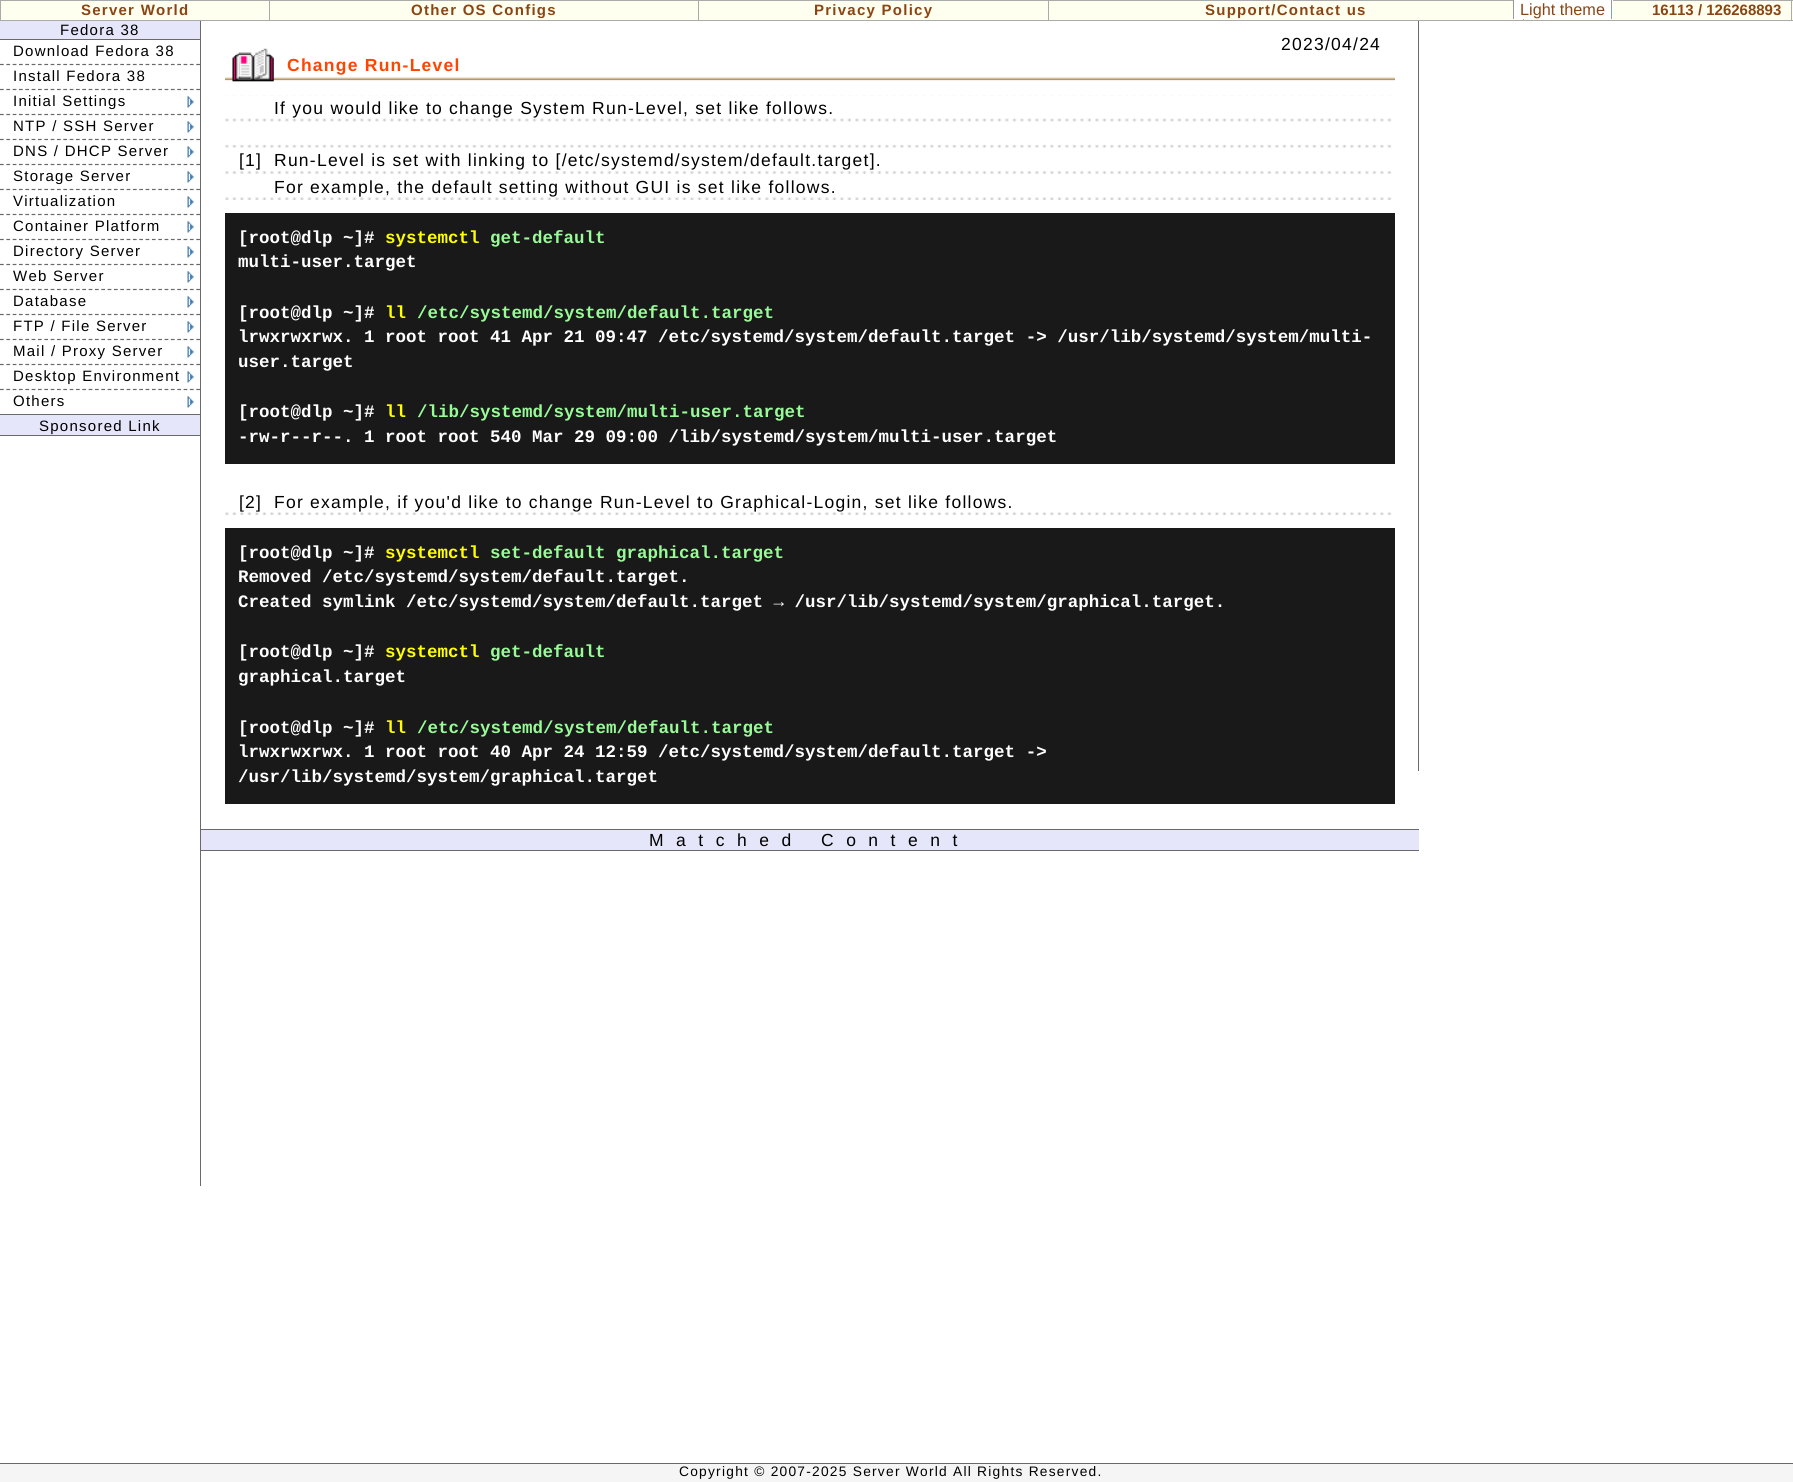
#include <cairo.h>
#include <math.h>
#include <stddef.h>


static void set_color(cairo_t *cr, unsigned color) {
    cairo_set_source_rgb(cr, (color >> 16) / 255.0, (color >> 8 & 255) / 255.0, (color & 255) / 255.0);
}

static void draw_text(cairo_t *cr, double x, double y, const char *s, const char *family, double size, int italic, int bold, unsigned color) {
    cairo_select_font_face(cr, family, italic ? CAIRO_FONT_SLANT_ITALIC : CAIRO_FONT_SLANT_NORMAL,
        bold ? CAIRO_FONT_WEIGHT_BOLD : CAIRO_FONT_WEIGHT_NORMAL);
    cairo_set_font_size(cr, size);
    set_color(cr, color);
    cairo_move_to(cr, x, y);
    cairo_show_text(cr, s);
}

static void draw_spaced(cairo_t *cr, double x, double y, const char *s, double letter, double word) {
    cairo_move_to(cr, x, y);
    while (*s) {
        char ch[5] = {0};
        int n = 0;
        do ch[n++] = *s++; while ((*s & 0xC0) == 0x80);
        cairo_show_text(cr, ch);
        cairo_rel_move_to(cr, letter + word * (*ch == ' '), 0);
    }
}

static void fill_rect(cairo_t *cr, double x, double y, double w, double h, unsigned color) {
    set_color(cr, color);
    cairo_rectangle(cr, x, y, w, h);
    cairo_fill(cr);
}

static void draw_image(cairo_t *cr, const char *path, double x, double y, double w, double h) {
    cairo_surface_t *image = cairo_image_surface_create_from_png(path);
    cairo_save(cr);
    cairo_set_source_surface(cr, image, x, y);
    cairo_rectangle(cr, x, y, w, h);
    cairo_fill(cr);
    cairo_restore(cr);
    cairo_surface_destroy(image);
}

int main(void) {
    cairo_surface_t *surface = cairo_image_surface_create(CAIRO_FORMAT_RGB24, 1793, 1482);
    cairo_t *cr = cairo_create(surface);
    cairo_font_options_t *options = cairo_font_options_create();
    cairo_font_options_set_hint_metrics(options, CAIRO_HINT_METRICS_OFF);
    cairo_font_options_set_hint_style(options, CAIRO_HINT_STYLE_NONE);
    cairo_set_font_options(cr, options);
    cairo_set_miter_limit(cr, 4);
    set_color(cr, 0xFFFFFF);
    cairo_paint(cr);
    fill_rect(cr, 0, 0, 1793, 21, 0xAAAAAA);
    fill_rect(cr, 1, 1, 268, 19, 0xFFFFF0);
    cairo_select_font_face(cr, "Liberation Sans", CAIRO_FONT_SLANT_NORMAL, CAIRO_FONT_WEIGHT_BOLD);
    cairo_set_font_size(cr, 15);
    set_color(cr, 0x8B4513);
    draw_spaced(cr, 81, 15, "Server World", 1.25, 0);
    fill_rect(cr, 270, 1, 428, 19, 0xFFFFF0);
    set_color(cr, 0x8B4513);
    draw_spaced(cr, 411, 15, "Other OS Configs", 1.25, 0);
    fill_rect(cr, 699, 1, 349, 19, 0xFFFFF0);
    set_color(cr, 0x8B4513);
    draw_spaced(cr, 814, 15, "Privacy Policy", 1.25, 0);
    fill_rect(cr, 1049, 1, 474, 19, 0xFFFFF0);
    set_color(cr, 0x8B4513);
    draw_spaced(cr, 1205, 15, "Support/Contact us", 1.25, 0);
    fill_rect(cr, 1524, 1, 269, 19, 0xFFFFF0);
    fill_rect(cr, 1791, 1, 1, 19, 0xAAAAAA);
    fill_rect(cr, 1514, 0, 99, 19, 0xFFFFFF);
    fill_rect(cr, 1611, 0, 1, 19, 0x999999);
    fill_rect(cr, 1513, 0, 1, 19, 0x999999);
    draw_text(cr, 1520, 15, "Light theme", "Liberation Sans", 16.25, 0, 0, 0x8B4513);
    draw_text(cr, 1652, 15, "16113 / 126268893", "Liberation Sans", 15, 0, 1, 0x8B4513);
    fill_rect(cr, 200, 829, 1219, 1, 0x696969);
    fill_rect(cr, 200, 850, 1219, 1, 0x696969);
    fill_rect(cr, 200, 21, 1, 1165, 0x696969);
    fill_rect(cr, 0, 21, 200, 18, 0xE6E6FA);
    fill_rect(cr, 0, 39, 200, 1, 0x696969);
    cairo_select_font_face(cr, "Liberation Sans", CAIRO_FONT_SLANT_NORMAL, CAIRO_FONT_WEIGHT_NORMAL);
    set_color(cr, 0x000000);
    draw_spaced(cr, 60, 35, "Fedora 38", 1.25, 0);
    cairo_new_path(cr);
    cairo_move_to(cr, 0, 64.5);
    cairo_line_to(cr, 200, 64.5);
    set_color(cr, 0x696969);
    cairo_set_line_width(cr, 1.2);
    cairo_set_dash(cr, (double[]){3.75, 2.58}, 2, 0);
    cairo_stroke(cr);
    set_color(cr, 0x000000);
    draw_spaced(cr, 13, 56, "Download Fedora 38", 1.25, 0);
    cairo_new_path(cr);
    cairo_move_to(cr, 0, 89.5);
    cairo_line_to(cr, 200, 89.5);
    set_color(cr, 0x696969);
    cairo_stroke(cr);
    set_color(cr, 0x000000);
    draw_spaced(cr, 13, 81, "Install Fedora 38", 1.25, 0);
    draw_image(cr, "assets/img1.png", 187, 96, 7, 12);
    cairo_new_path(cr);
    cairo_move_to(cr, 0, 114.5);
    cairo_line_to(cr, 200, 114.5);
    set_color(cr, 0x696969);
    cairo_stroke(cr);
    set_color(cr, 0x000000);
    draw_spaced(cr, 13, 106, "Initial Settings", 1.25, 0);
    draw_image(cr, "assets/img1.png", 187, 121, 7, 12);
    cairo_new_path(cr);
    cairo_move_to(cr, 0, 139.5);
    cairo_line_to(cr, 200, 139.5);
    set_color(cr, 0x696969);
    cairo_stroke(cr);
    set_color(cr, 0x000000);
    draw_spaced(cr, 13, 131, "NTP / SSH Server", 1.25, 0);
    draw_image(cr, "assets/img1.png", 187, 146, 7, 12);
    cairo_new_path(cr);
    cairo_move_to(cr, 0, 164.5);
    cairo_line_to(cr, 200, 164.5);
    set_color(cr, 0x696969);
    cairo_stroke(cr);
    set_color(cr, 0x000000);
    draw_spaced(cr, 13, 156, "DNS / DHCP Server", 1.25, 0);
    draw_image(cr, "assets/img1.png", 187, 171, 7, 12);
    cairo_new_path(cr);
    cairo_move_to(cr, 0, 189.5);
    cairo_line_to(cr, 200, 189.5);
    set_color(cr, 0x696969);
    cairo_stroke(cr);
    set_color(cr, 0x000000);
    draw_spaced(cr, 13, 181, "Storage Server", 1.25, 0);
    draw_image(cr, "assets/img2.png", 187, 196, 7, 12);
    cairo_new_path(cr);
    cairo_move_to(cr, 0, 214.5);
    cairo_line_to(cr, 200, 214.5);
    set_color(cr, 0x696969);
    cairo_stroke(cr);
    set_color(cr, 0x000000);
    draw_spaced(cr, 13, 206, "Virtualization", 1.25, 0);
    draw_image(cr, "assets/img1.png", 187, 221, 7, 12);
    cairo_new_path(cr);
    cairo_move_to(cr, 0, 239.5);
    cairo_line_to(cr, 200, 239.5);
    set_color(cr, 0x696969);
    cairo_stroke(cr);
    set_color(cr, 0x000000);
    draw_spaced(cr, 13, 231, "Container Platform", 1.25, 0);
    draw_image(cr, "assets/img1.png", 187, 246, 7, 12);
    cairo_new_path(cr);
    cairo_move_to(cr, 0, 264.5);
    cairo_line_to(cr, 200, 264.5);
    set_color(cr, 0x696969);
    cairo_stroke(cr);
    set_color(cr, 0x000000);
    draw_spaced(cr, 13, 256, "Directory Server", 1.25, 0);
    draw_image(cr, "assets/img1.png", 187, 271, 7, 12);
    cairo_new_path(cr);
    cairo_move_to(cr, 0, 289.5);
    cairo_line_to(cr, 200, 289.5);
    set_color(cr, 0x696969);
    cairo_stroke(cr);
    set_color(cr, 0x000000);
    draw_spaced(cr, 13, 281, "Web Server", 1.25, 0);
    draw_image(cr, "assets/img1.png", 187, 296, 7, 12);
    cairo_new_path(cr);
    cairo_move_to(cr, 0, 314.5);
    cairo_line_to(cr, 200, 314.5);
    set_color(cr, 0x696969);
    cairo_stroke(cr);
    set_color(cr, 0x000000);
    draw_spaced(cr, 13, 306, "Database", 1.25, 0);
    draw_image(cr, "assets/img1.png", 187, 321, 7, 12);
    cairo_new_path(cr);
    cairo_move_to(cr, 0, 339.5);
    cairo_line_to(cr, 200, 339.5);
    set_color(cr, 0x696969);
    cairo_stroke(cr);
    set_color(cr, 0x000000);
    draw_spaced(cr, 13, 331, "FTP / File Server", 1.25, 0);
    draw_image(cr, "assets/img1.png", 187, 346, 7, 12);
    cairo_new_path(cr);
    cairo_move_to(cr, 0, 364.5);
    cairo_line_to(cr, 200, 364.5);
    set_color(cr, 0x696969);
    cairo_stroke(cr);
    set_color(cr, 0x000000);
    draw_spaced(cr, 13, 356, "Mail / Proxy Server", 1.25, 0);
    draw_image(cr, "assets/img1.png", 187, 371, 7, 12);
    cairo_new_path(cr);
    cairo_move_to(cr, 0, 389.5);
    cairo_line_to(cr, 200, 389.5);
    set_color(cr, 0x696969);
    cairo_stroke(cr);
    set_color(cr, 0x000000);
    draw_spaced(cr, 13, 381, "Desktop Environment", 1.25, 0);
    draw_image(cr, "assets/img1.png", 187, 396, 7, 12);
    fill_rect(cr, 0, 414, 200, 1, 0x696969);
    set_color(cr, 0x000000);
    draw_spaced(cr, 13, 406, "Others", 1.25, 0);
    fill_rect(cr, 0, 415, 200, 20, 0xE6E6FA);
    fill_rect(cr, 0, 435, 200, 1, 0x696969);
    set_color(cr, 0x000000);
    draw_spaced(cr, 39, 431, "Sponsored Link", 1.25, 0);
    draw_image(cr, "assets/img3.png", 225, 48, 1170, 34);
    cairo_set_font_size(cr, 17.5);
    draw_spaced(cr, 1281, 50, "2023/04/24", 1.25, 0);
    cairo_select_font_face(cr, "Liberation Sans", CAIRO_FONT_SLANT_NORMAL, CAIRO_FONT_WEIGHT_BOLD);
    set_color(cr, 0xFF4500);
    draw_spaced(cr, 287, 71, "Change Run-Level", 1.25, 0);
    draw_image(cr, "assets/img4.png", 225, 95, 1167, 105);
    cairo_select_font_face(cr, "Liberation Sans", CAIRO_FONT_SLANT_NORMAL, CAIRO_FONT_WEIGHT_NORMAL);
    set_color(cr, 0x000000);
    draw_spaced(cr, 274, 114, "If you would like to change System Run-Level, set like follows.", 1.25, 0);
    draw_spaced(cr, 239, 166, "[1]", 1.25, 0);
    draw_spaced(cr, 274, 166, "Run-Level is set with linking to [/etc/systemd/system/default.target].", 1.25, 0);
    draw_spaced(cr, 274, 193, "For example, the default setting without GUI is set like follows.", 1.25, 0);
    fill_rect(cr, 225, 213, 1170, 251, 0x191919);
    draw_text(cr, 238, 243, "[root@dlp ~]#", "Liberation Mono", 17.5, 0, 1, 0xFFFFFF);
    draw_text(cr, 385, 243, "systemctl", "Liberation Mono", 17.5, 0, 1, 0xFFFF00);
    draw_text(cr, 490, 243, "get-default", "Liberation Mono", 17.5, 0, 1, 0x98FB98);
    draw_text(cr, 238, 267, "multi-user.target", "Liberation Mono", 17.5, 0, 1, 0xFFFFFF);
    draw_text(cr, 238, 318, "[root@dlp ~]#", "Liberation Mono", 17.5, 0, 1, 0xFFFFFF);
    draw_text(cr, 385, 318, "ll", "Liberation Mono", 17.5, 0, 1, 0xFFFF00);
    draw_text(cr, 417, 318, "/etc/systemd/system/default.target", "Liberation Mono", 17.5, 0, 1, 0x98FB98);
    draw_text(cr, 238, 342, "lrwxrwxrwx. 1 root root 41 Apr 21 09:47 /etc/systemd/system/default.target -> /usr/lib/systemd/system/multi-", "Liberation Mono", 17.5, 0, 1, 0xFFFFFF);
    draw_text(cr, 238, 367, "user.target", "Liberation Mono", 17.5, 0, 1, 0xFFFFFF);
    draw_text(cr, 238, 417, "[root@dlp ~]#", "Liberation Mono", 17.5, 0, 1, 0xFFFFFF);
    draw_text(cr, 385, 417, "ll", "Liberation Mono", 17.5, 0, 1, 0xFFFF00);
    draw_text(cr, 417, 417, "/lib/systemd/system/multi-user.target", "Liberation Mono", 17.5, 0, 1, 0x98FB98);
    draw_text(cr, 238, 442, "-rw-r--r--. 1 root root 540 Mar 29 09:00 /lib/systemd/system/multi-user.target", "Liberation Mono", 17.5, 0, 1, 0xFFFFFF);
    draw_image(cr, "assets/img5.png", 225, 512, 1167, 3);
    cairo_select_font_face(cr, "Liberation Sans", CAIRO_FONT_SLANT_NORMAL, CAIRO_FONT_WEIGHT_NORMAL);
    set_color(cr, 0x000000);
    draw_spaced(cr, 239, 508, "[2]", 1.25, 0);
    draw_spaced(cr, 274, 508, "For example, if you'd like to change Run-Level to Graphical-Login, set like follows.", 1.25, 0);
    fill_rect(cr, 225, 528, 1170, 276, 0x191919);
    draw_text(cr, 238, 558, "[root@dlp ~]#", "Liberation Mono", 17.5, 0, 1, 0xFFFFFF);
    draw_text(cr, 385, 558, "systemctl", "Liberation Mono", 17.5, 0, 1, 0xFFFF00);
    draw_text(cr, 490, 558, "set-default graphical.target", "Liberation Mono", 17.5, 0, 1, 0x98FB98);
    draw_text(cr, 238, 582, "Removed /etc/systemd/system/default.target.", "Liberation Mono", 17.5, 0, 1, 0xFFFFFF);
    draw_text(cr, 238, 607, "Created symlink /etc/systemd/system/default.target → /usr/lib/systemd/system/graphical.target.", "Liberation Mono", 17.5, 0, 1, 0xFFFFFF);
    draw_text(cr, 238, 657, "[root@dlp ~]#", "Liberation Mono", 17.5, 0, 1, 0xFFFFFF);
    draw_text(cr, 385, 657, "systemctl", "Liberation Mono", 17.5, 0, 1, 0xFFFF00);
    draw_text(cr, 490, 657, "get-default", "Liberation Mono", 17.5, 0, 1, 0x98FB98);
    draw_text(cr, 238, 682, "graphical.target", "Liberation Mono", 17.5, 0, 1, 0xFFFFFF);
    draw_text(cr, 238, 733, "[root@dlp ~]#", "Liberation Mono", 17.5, 0, 1, 0xFFFFFF);
    draw_text(cr, 385, 733, "ll", "Liberation Mono", 17.5, 0, 1, 0xFFFF00);
    draw_text(cr, 417, 733, "/etc/systemd/system/default.target", "Liberation Mono", 17.5, 0, 1, 0x98FB98);
    draw_text(cr, 238, 757, "lrwxrwxrwx. 1 root root 40 Apr 24 12:59 /etc/systemd/system/default.target ->", "Liberation Mono", 17.5, 0, 1, 0xFFFFFF);
    draw_text(cr, 238, 782, "/usr/lib/systemd/system/graphical.target", "Liberation Mono", 17.5, 0, 1, 0xFFFFFF);
    fill_rect(cr, 201, 830, 1218, 20, 0xE6E6FA);
    cairo_select_font_face(cr, "Liberation Sans", CAIRO_FONT_SLANT_NORMAL, CAIRO_FONT_WEIGHT_NORMAL);
    set_color(cr, 0x000000);
    draw_spaced(cr, 649, 846, "Matched Content", 12.5, 0);
    fill_rect(cr, 1418, 21, 1, 750, 0x696969);
    fill_rect(cr, 0, 1464, 1793, 18, 0xF5F5F5);
    fill_rect(cr, 0, 1463, 1793, 1, 0x696969);
    cairo_set_font_size(cr, 13.75);
    set_color(cr, 0x000000);
    draw_spaced(cr, 679, 1476, "Copyright © 2007-2025 Server World All Rights Reserved.", 1.25, 0);
    cairo_surface_write_to_png(surface, "output.png");
    cairo_font_options_destroy(options);
    cairo_destroy(cr);
    cairo_surface_destroy(surface);
    return 0;
}
